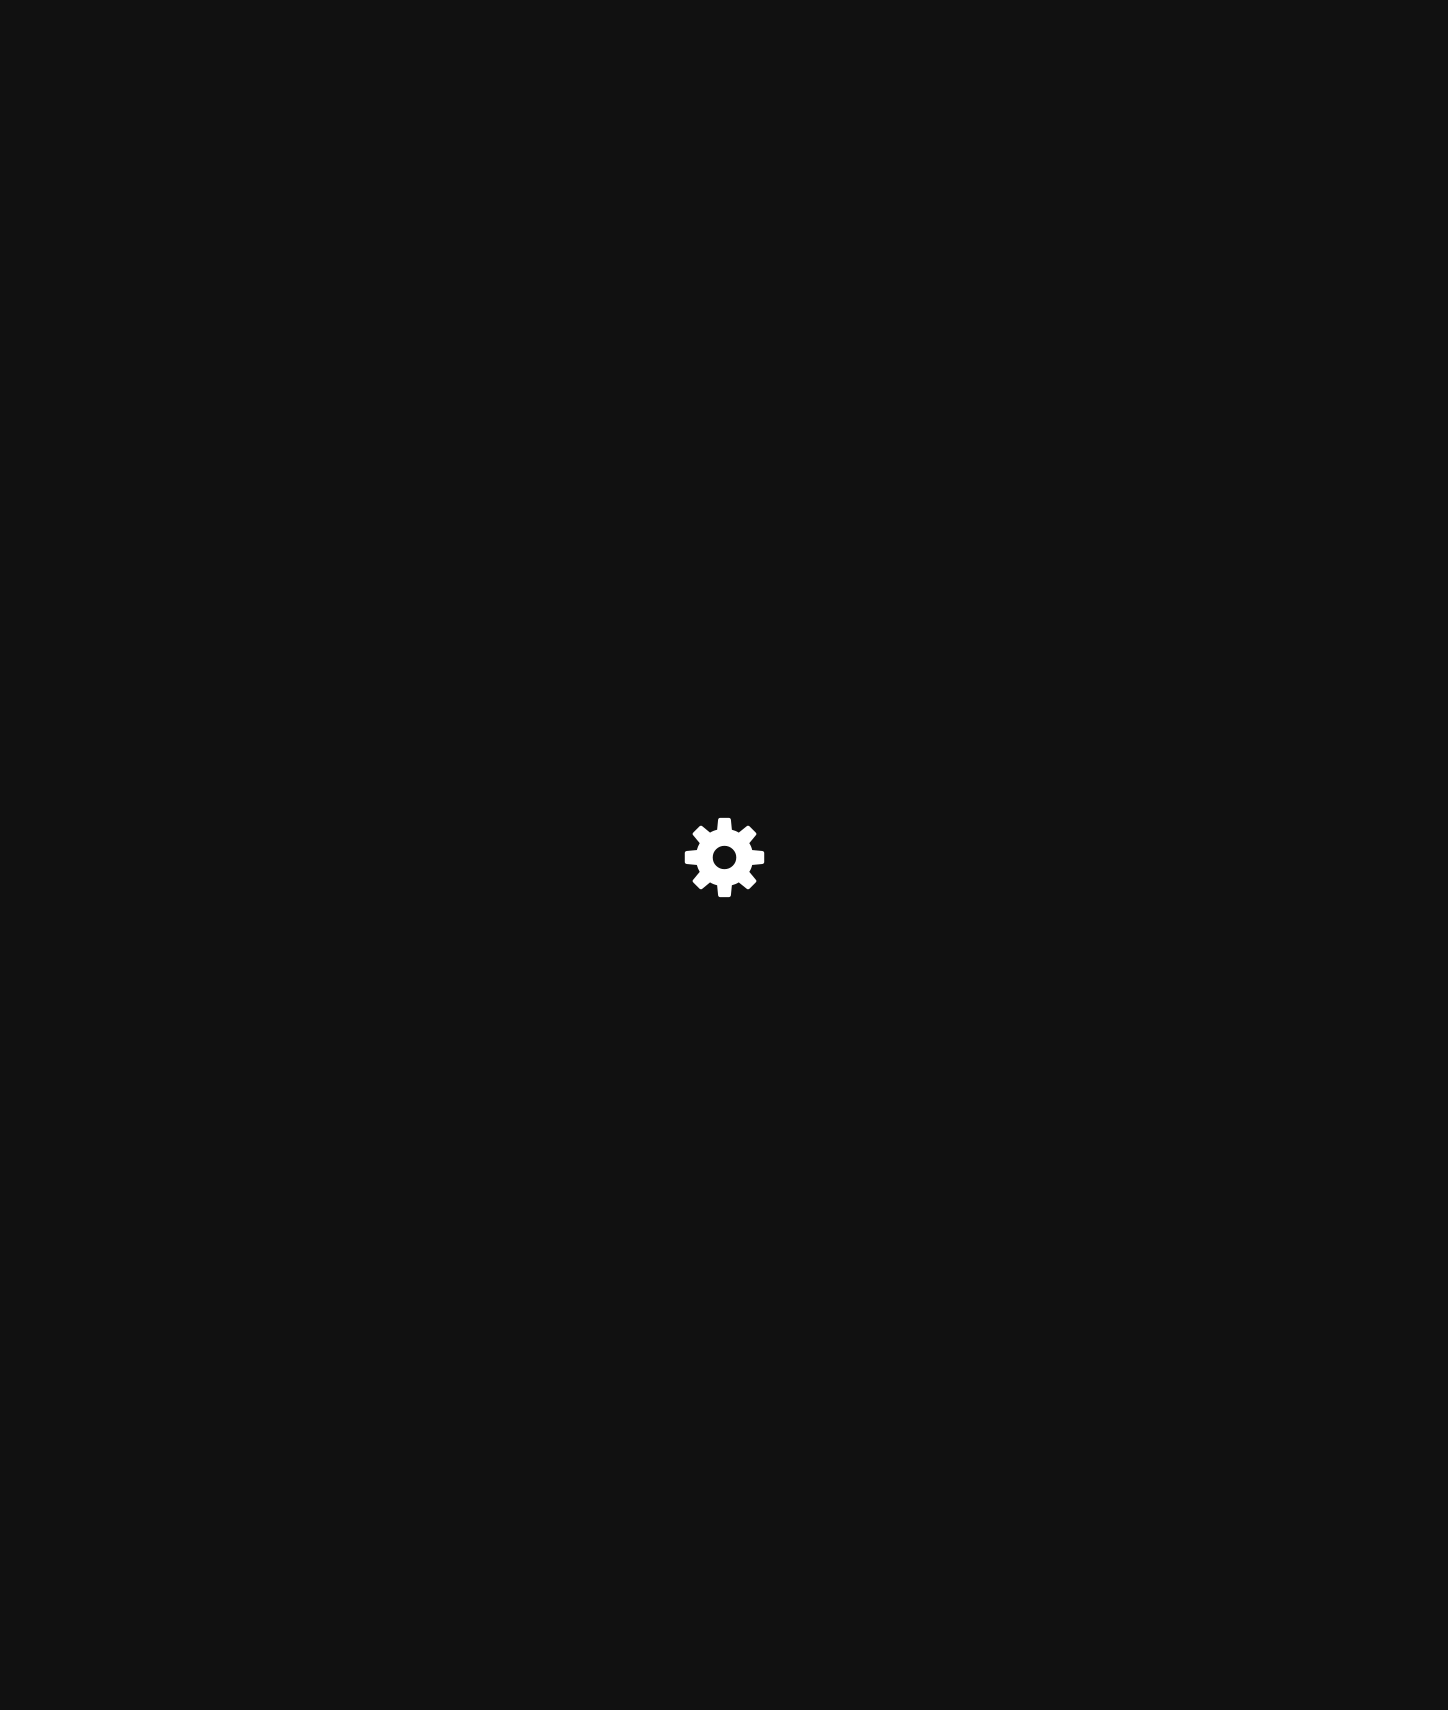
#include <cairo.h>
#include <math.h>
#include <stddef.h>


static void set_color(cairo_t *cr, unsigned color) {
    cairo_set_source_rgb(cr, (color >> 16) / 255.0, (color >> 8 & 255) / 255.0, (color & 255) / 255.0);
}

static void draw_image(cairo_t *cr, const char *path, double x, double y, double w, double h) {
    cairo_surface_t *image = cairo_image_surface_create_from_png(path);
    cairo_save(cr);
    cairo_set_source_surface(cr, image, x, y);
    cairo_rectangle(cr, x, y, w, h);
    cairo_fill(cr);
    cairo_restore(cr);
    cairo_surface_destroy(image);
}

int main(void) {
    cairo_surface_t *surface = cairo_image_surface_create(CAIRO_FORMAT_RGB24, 1448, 1710);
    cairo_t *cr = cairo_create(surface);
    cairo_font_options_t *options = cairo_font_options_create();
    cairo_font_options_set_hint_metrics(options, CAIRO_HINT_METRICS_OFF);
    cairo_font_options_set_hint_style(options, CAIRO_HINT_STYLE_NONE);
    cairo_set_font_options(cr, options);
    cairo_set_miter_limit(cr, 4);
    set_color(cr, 0x111111);
    cairo_paint(cr);
    draw_image(cr, "assets/img1.png", 684, 817, 81, 81);
    cairo_surface_write_to_png(surface, "output.png");
    cairo_font_options_destroy(options);
    cairo_destroy(cr);
    cairo_surface_destroy(surface);
    return 0;
}
